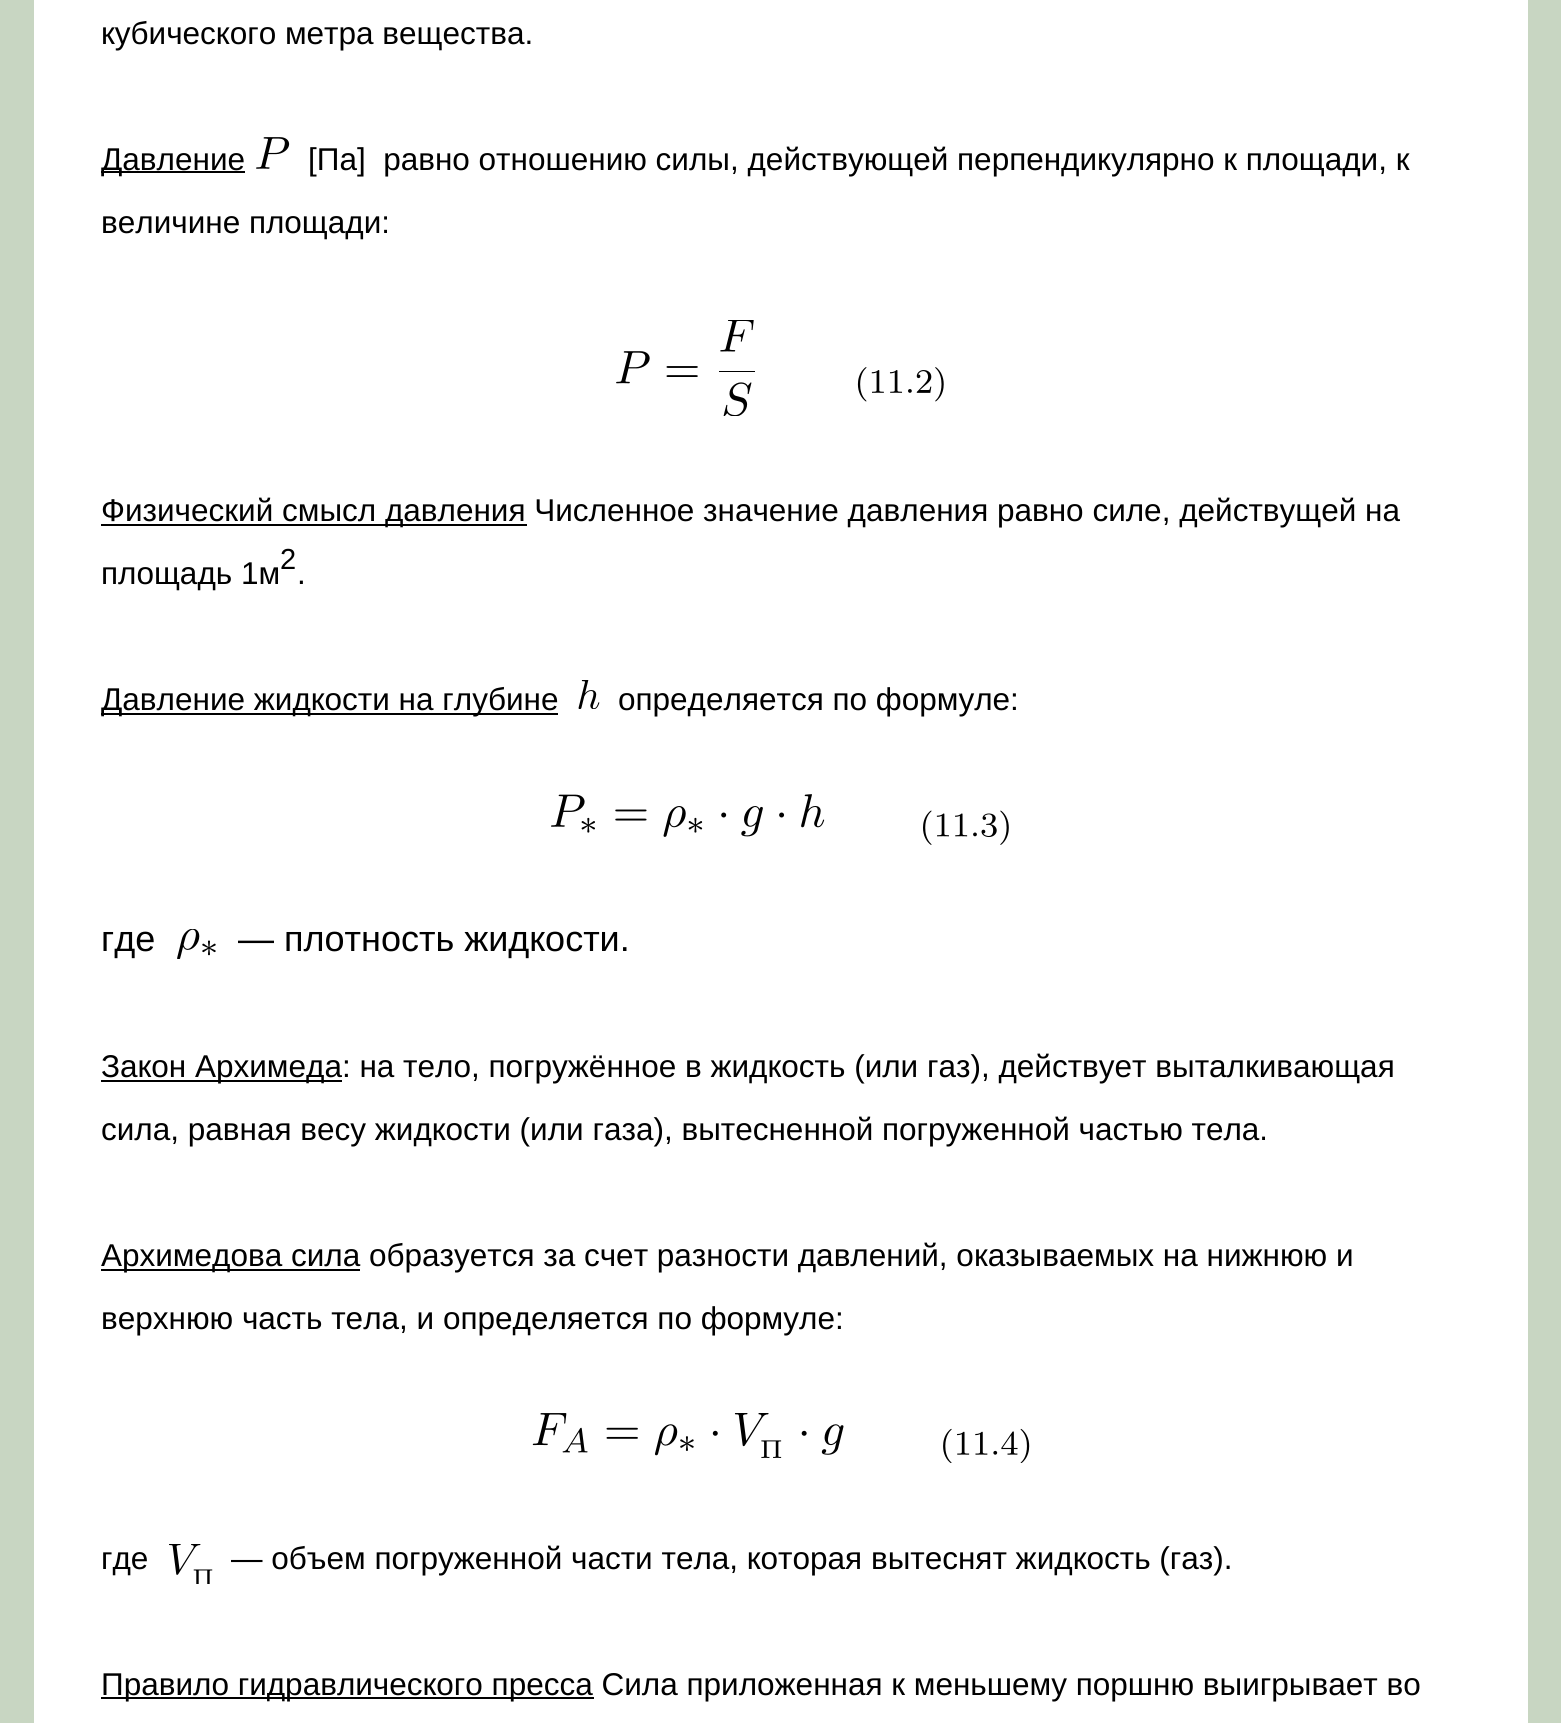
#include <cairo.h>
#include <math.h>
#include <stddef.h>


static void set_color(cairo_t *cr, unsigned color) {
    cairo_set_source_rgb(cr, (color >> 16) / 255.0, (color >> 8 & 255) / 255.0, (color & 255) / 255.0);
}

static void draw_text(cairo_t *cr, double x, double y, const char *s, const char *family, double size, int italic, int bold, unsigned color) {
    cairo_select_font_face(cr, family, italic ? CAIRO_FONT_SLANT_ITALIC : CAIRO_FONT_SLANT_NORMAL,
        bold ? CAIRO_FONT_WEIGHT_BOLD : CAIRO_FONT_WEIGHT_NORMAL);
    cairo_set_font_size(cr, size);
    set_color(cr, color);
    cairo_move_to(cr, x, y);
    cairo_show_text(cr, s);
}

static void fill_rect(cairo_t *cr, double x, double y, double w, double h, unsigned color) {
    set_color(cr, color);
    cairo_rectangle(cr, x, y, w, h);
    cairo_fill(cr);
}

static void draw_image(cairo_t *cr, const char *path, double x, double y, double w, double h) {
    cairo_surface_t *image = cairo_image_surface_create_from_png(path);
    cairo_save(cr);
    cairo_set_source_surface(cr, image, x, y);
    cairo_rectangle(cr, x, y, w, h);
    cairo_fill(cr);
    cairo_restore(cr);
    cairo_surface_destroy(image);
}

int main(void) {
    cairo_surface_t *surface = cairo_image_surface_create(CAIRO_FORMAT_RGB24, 1561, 1723);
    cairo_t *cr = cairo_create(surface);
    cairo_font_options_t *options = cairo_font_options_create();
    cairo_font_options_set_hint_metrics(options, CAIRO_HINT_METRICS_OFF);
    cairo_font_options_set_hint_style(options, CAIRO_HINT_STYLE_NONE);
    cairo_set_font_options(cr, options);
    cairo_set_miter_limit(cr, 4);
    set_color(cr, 0xC8D6C2);
    cairo_paint(cr);
    fill_rect(cr, 34, 0, 1494, 1723, 0xFFFFFF);
    draw_text(cr, 101, 44, "кубического метра вещества.", "Liberation Sans", 31.5, 0, 0, 0x000000);
    fill_rect(cr, 101, 171, 144, 2, 0x000000);
    draw_text(cr, 101, 170, "Давление", "Liberation Sans", 31.5, 0, 0, 0x000000);
    draw_image(cr, "assets/img1.png", 256, 137, 34, 32);
    draw_text(cr, 308, 170, "[Па]  равно отношению силы, действующей перпендикулярно к площади, к", "Liberation Sans", 31.5, 0, 0, 0x000000);
    draw_text(cr, 101, 233, "величине площади:", "Liberation Sans", 31.5, 0, 0, 0x000000);
    draw_image(cr, "assets/img2.png", 616, 320, 328, 96);
    fill_rect(cr, 101, 524, 426, 2, 0x000000);
    draw_text(cr, 101, 521, "Физический смысл давления Численное значение давления равно силе, действущей на", "Liberation Sans", 31.5, 0, 0, 0x000000);
    draw_text(cr, 280, 569, "2", "Liberation Sans", 29, 0, 0, 0x000000);
    draw_text(cr, 101, 584, "площадь 1м", "Liberation Sans", 31.5, 0, 0, 0x000000);
    draw_text(cr, 297, 584, ".", "Liberation Sans", 31.5, 0, 0, 0x000000);
    fill_rect(cr, 101, 713, 457, 2, 0x000000);
    draw_text(cr, 101, 710, "Давление жидкости на глубине", "Liberation Sans", 31.5, 0, 0, 0x000000);
    draw_image(cr, "assets/img3.png", 578, 680, 22, 29);
    draw_text(cr, 618, 710, "определяется по формуле:", "Liberation Sans", 31.5, 0, 0, 0x000000);
    draw_image(cr, "assets/img4.png", 551, 794, 458, 51);
    draw_text(cr, 101, 951, "где", "Liberation Sans", 36, 0, 0, 0x000000);
    draw_image(cr, "assets/img5.png", 177, 929, 39, 30);
    draw_text(cr, 238, 951, "— плотность жидкости.", "Liberation Sans", 36, 0, 0, 0x000000);
    fill_rect(cr, 101, 1080, 241, 2, 0x000000);
    draw_text(cr, 101, 1077, "Закон Архимеда: на тело, погружённое в жидкость (или газ), действует выталкивающая", "Liberation Sans", 31.5, 0, 0, 0x000000);
    draw_text(cr, 101, 1140, "сила, равная весу жидкости (или газа), вытесненной погруженной частью тела.", "Liberation Sans", 31.5, 0, 0, 0x000000);
    fill_rect(cr, 101, 1269, 259, 2, 0x000000);
    draw_text(cr, 101, 1266, "Архимедова сила образуется за счет разности давлений, оказываемых на нижнюю и", "Liberation Sans", 31.5, 0, 0, 0x000000);
    draw_text(cr, 101, 1329, "верхнюю часть тела, и определяется по формуле:", "Liberation Sans", 31.5, 0, 0, 0x000000);
    draw_image(cr, "assets/img6.png", 532, 1413, 498, 50);
    draw_text(cr, 101, 1569, "где", "Liberation Sans", 31.5, 0, 0, 0x000000);
    draw_image(cr, "assets/img7.png", 169, 1544, 44, 40);
    draw_text(cr, 231, 1569, "— объем погруженной части тела, которая вытеснят жидкость (газ).", "Liberation Sans", 31.5, 0, 0, 0x000000);
    fill_rect(cr, 101, 1697, 493, 2, 0x000000);
    draw_text(cr, 101, 1695, "Правило гидравлического пресса Сила приложенная к меньшему поршню выигрывает во", "Liberation Sans", 31.5, 0, 0, 0x000000);
    cairo_surface_write_to_png(surface, "output.png");
    cairo_font_options_destroy(options);
    cairo_destroy(cr);
    cairo_surface_destroy(surface);
    return 0;
}
